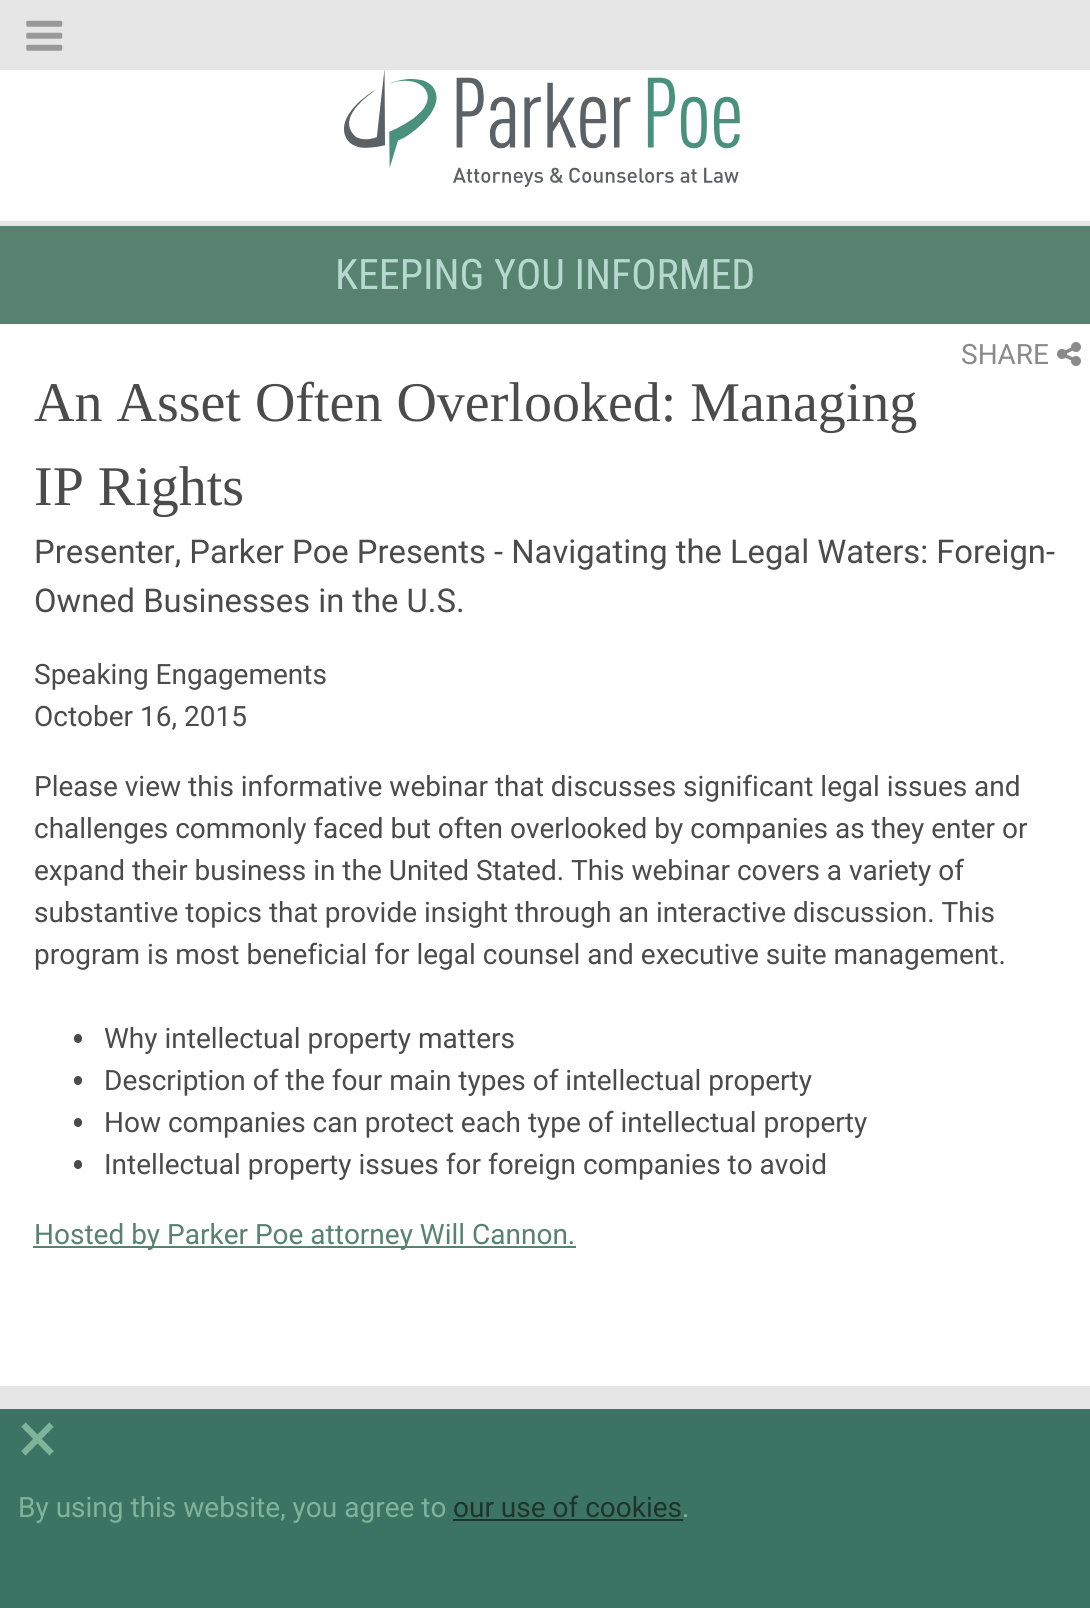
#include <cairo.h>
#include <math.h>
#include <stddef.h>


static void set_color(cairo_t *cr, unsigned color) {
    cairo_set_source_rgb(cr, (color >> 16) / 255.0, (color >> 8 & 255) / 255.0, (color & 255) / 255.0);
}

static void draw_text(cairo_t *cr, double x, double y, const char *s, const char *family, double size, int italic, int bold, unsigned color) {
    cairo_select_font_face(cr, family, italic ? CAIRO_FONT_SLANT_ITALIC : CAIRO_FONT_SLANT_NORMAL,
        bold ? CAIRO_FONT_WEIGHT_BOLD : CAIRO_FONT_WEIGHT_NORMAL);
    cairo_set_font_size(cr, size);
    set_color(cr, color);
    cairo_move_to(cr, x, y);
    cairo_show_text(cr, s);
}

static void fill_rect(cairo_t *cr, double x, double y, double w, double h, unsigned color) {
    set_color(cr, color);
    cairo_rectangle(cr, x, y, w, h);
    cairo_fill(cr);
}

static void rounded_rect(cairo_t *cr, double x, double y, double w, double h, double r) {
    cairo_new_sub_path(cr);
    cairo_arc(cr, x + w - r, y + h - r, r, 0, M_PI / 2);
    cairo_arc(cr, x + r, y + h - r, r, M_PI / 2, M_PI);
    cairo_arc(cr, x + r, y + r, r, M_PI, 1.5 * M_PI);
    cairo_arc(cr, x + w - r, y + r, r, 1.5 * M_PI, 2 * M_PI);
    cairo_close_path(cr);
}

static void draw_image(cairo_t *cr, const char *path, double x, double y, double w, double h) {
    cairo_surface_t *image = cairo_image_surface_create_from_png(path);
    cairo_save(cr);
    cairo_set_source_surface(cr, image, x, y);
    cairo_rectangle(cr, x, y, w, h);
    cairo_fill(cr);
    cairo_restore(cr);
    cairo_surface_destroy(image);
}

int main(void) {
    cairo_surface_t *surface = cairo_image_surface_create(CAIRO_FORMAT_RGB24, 1090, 1608);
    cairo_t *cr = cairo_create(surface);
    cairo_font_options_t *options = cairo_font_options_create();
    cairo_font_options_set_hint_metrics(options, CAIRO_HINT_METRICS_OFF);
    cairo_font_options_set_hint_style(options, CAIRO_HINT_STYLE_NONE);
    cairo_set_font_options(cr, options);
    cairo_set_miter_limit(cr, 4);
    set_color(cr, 0xFFFFFF);
    cairo_paint(cr);
    fill_rect(cr, 0, 0, 1090, 70, 0xE6E6E6);
    draw_image(cr, "assets/img1.png", 26, 20, 37, 31);
    fill_rect(cr, 0, 221, 1090, 5, 0xE6E6E6);
    draw_image(cr, "assets/img2.png", 344, 70, 396, 117);
    fill_rect(cr, 0, 226, 1090, 98, 0x578270);
    draw_text(cr, 335, 289, "KEEPING YOU INFORMED", "Roboto Condensed", 42, 0, 0, 0xB5D9CE);
    draw_text(cr, 961, 364, "SHARE", "Roboto", 28, 0, 0, 0x8A8A8A);
    draw_image(cr, "assets/img3.png", 1057, 342, 24, 24);
    draw_text(cr, 34, 421, "An Asset Often Overlooked: Managing", "Liberation Serif", 56, 0, 0, 0x4B4B4B);
    draw_text(cr, 34, 505, "IP Rights", "Liberation Serif", 56, 0, 0, 0x4B4B4B);
    draw_text(cr, 34, 563, "Presenter, Parker Poe Presents - Navigating the Legal Waters: Foreign-", "Roboto", 32.75, 0, 0, 0x4B4B4B);
    draw_text(cr, 34, 612, "Owned Businesses in the U.S.", "Roboto", 32.75, 0, 0, 0x4B4B4B);
    draw_text(cr, 34, 684, "Speaking Engagements", "Roboto", 28, 0, 0, 0x4B4B4B);
    draw_text(cr, 34, 726, "October 16, 2015", "Roboto", 28, 0, 0, 0x4B4B4B);
    draw_text(cr, 34, 796, "Please view this informative webinar that discusses significant legal issues and", "Roboto", 28, 0, 0, 0x4B4B4B);
    draw_text(cr, 34, 838, "challenges commonly faced but often overlooked by companies as they enter or", "Roboto", 28, 0, 0, 0x4B4B4B);
    draw_text(cr, 34, 880, "expand their business in the United Stated. This webinar covers a variety of", "Roboto", 28, 0, 0, 0x4B4B4B);
    draw_text(cr, 34, 922, "substantive topics that provide insight through an interactive discussion. This", "Roboto", 28, 0, 0, 0x4B4B4B);
    draw_text(cr, 34, 964, "program is most beneficial for legal counsel and executive suite management.", "Roboto", 28, 0, 0, 0x4B4B4B);
    rounded_rect(cr, 74, 1034, 8, 9, 4);
    cairo_fill(cr);
    draw_text(cr, 104, 1048, "Why intellectual property matters", "Roboto", 28, 0, 0, 0x4B4B4B);
    rounded_rect(cr, 74, 1076, 8, 9, 4);
    cairo_fill(cr);
    draw_text(cr, 104, 1090, "Description of the four main types of intellectual property", "Roboto", 28, 0, 0, 0x4B4B4B);
    rounded_rect(cr, 74, 1118, 8, 9, 4);
    cairo_fill(cr);
    draw_text(cr, 104, 1132, "How companies can protect each type of intellectual property", "Roboto", 28, 0, 0, 0x4B4B4B);
    rounded_rect(cr, 74, 1160, 8, 9, 4);
    cairo_fill(cr);
    draw_text(cr, 104, 1174, "Intellectual property issues for foreign companies to avoid", "Roboto", 28, 0, 0, 0x4B4B4B);
    fill_rect(cr, 33, 1246, 543, 2, 0x578270);
    draw_text(cr, 34, 1244, "Hosted by Parker Poe attorney Will Cannon.", "Roboto", 28, 0, 0, 0x578270);
    fill_rect(cr, 0, 1386, 1090, 23, 0xE6E6E6);
    fill_rect(cr, 0, 1409, 1090, 199, 0x3B7463);
    draw_text(cr, 18, 1463, "×", "Roboto", 74, 0, 0, 0x7EB49C);
    draw_text(cr, 18, 1517, "By using this website, you agree to", "Roboto", 28, 0, 0, 0x7EB49C);
    draw_text(cr, 453, 1517, "our use of cookies", "Roboto", 28, 0, 0, 0x1F342B);
    fill_rect(cr, 453, 1519, 230, 2, 0x1F342B);
    draw_text(cr, 682, 1517, ".", "Roboto", 28, 0, 0, 0x7EB49C);
    cairo_surface_write_to_png(surface, "output.png");
    cairo_font_options_destroy(options);
    cairo_destroy(cr);
    cairo_surface_destroy(surface);
    return 0;
}
